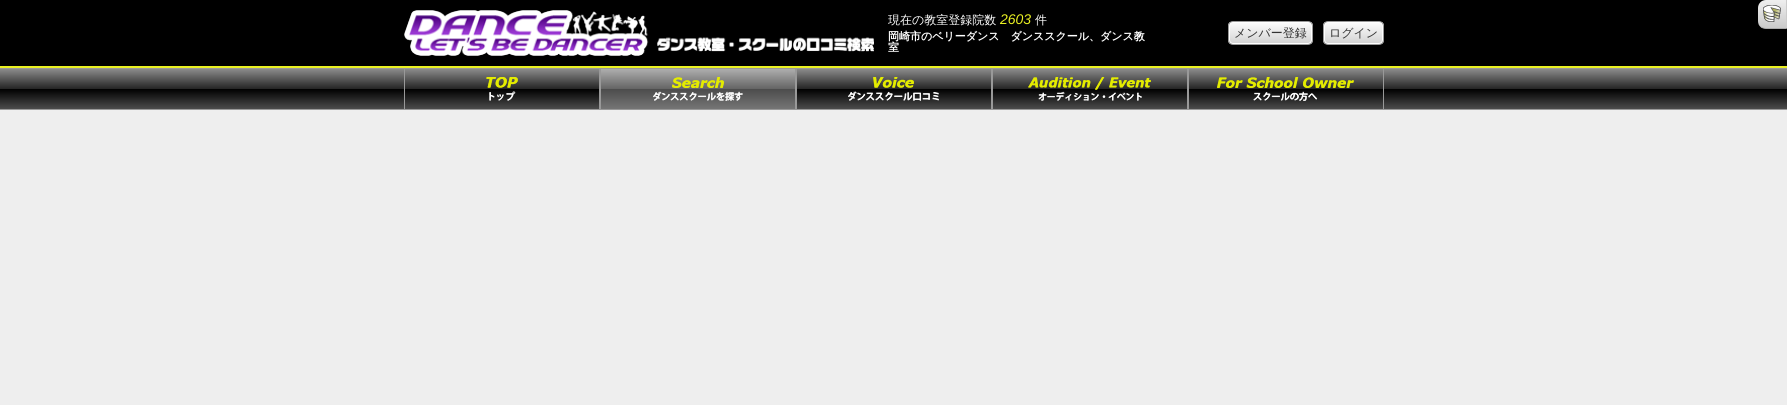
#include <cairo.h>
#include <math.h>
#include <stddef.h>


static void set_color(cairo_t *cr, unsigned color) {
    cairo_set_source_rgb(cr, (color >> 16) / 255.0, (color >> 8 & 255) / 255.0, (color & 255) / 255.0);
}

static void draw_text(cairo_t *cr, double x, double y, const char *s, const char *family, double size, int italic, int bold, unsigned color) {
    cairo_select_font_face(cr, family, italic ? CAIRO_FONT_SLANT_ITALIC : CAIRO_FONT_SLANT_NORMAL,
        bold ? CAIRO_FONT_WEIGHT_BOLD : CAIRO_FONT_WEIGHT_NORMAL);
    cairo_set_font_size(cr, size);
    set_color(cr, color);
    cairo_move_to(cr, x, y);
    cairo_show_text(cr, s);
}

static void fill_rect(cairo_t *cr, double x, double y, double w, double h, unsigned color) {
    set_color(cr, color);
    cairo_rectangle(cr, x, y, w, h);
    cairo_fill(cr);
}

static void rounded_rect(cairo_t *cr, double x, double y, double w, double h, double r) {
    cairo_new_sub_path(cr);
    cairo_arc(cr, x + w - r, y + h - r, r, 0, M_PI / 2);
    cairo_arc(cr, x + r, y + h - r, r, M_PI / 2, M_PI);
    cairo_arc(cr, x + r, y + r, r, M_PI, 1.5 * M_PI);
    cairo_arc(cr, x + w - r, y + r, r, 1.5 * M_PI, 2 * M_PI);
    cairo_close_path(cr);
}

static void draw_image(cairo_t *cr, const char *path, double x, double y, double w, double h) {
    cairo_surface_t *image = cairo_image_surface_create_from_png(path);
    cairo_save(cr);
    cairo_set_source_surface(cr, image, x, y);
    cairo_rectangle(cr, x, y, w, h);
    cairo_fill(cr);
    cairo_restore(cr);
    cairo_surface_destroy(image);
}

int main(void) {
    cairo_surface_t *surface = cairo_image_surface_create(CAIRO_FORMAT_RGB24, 1787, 405);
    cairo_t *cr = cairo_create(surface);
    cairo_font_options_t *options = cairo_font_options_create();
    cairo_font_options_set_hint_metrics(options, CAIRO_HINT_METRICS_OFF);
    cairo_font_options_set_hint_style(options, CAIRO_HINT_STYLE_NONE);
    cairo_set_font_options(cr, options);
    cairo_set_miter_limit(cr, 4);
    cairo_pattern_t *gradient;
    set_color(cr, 0xEEEEEE);
    cairo_paint(cr);
    fill_rect(cr, 0, 0, 1787, 66, 0x000000);
    draw_image(cr, "assets/img1.png", 404, 10, 470, 46);
    draw_image(cr, "assets/img2.png", 404, 10, 470, 46);
    draw_text(cr, 888, 24, "現在の教室登録院数", "WenQuanYi Zen Hei Medium", 12, 0, 0, 0xFFFFFF);
    draw_text(cr, 1000, 24, "2603", "Liberation Sans", 14, 1, 0, 0xEAF122);
    draw_text(cr, 1035, 24, "件", "WenQuanYi Zen Hei Medium", 12, 0, 0, 0xFFFFFF);
    draw_text(cr, 888, 40, "岡崎市のベリーダンス　ダンススクール、ダンス教", "WenQuanYi Zen Hei", 11, 0, 1, 0xFFFFFF);
    draw_text(cr, 888, 51, "室", "WenQuanYi Zen Hei", 11, 0, 1, 0xFFFFFF);
    cairo_save(cr);
    rounded_rect(cr, 1228, 21, 85, 24, 5);
    cairo_clip(cr);
    gradient = cairo_pattern_create_linear(1271, 22, 1271, 44);
    cairo_pattern_add_color_stop_rgba(gradient, 0, 0.992, 0.992, 0.992, 1);
    cairo_pattern_add_color_stop_rgba(gradient, 1, 0.824, 0.824, 0.824, 1);
    cairo_set_source(cr, gradient);
    cairo_pattern_destroy(gradient);
    cairo_rectangle(cr, 1228, 22, 85, 22);
    cairo_fill(cr);
    cairo_restore(cr);
    rounded_rect(cr, 1229.5, 22.5, 82, 21, 3.5);
    cairo_set_line_width(cr, 1);
    cairo_stroke(cr);
    rounded_rect(cr, 1228.5, 21.5, 84, 23, 4.5);
    set_color(cr, 0x999999);
    cairo_stroke(cr);
    draw_text(cr, 1234, 37, "メンバー登録", "WenQuanYi Zen Hei Medium", 12, 0, 0, 0x333333);
    cairo_save(cr);
    rounded_rect(cr, 1323, 21, 61, 24, 5);
    cairo_clip(cr);
    gradient = cairo_pattern_create_linear(1354, 22, 1354, 44);
    cairo_pattern_add_color_stop_rgba(gradient, 0, 0.992, 0.992, 0.992, 1);
    cairo_pattern_add_color_stop_rgba(gradient, 1, 0.824, 0.824, 0.824, 1);
    cairo_set_source(cr, gradient);
    cairo_pattern_destroy(gradient);
    cairo_rectangle(cr, 1323, 22, 61, 22);
    cairo_fill(cr);
    cairo_restore(cr);
    rounded_rect(cr, 1324.5, 22.5, 58, 21, 3.5);
    set_color(cr, 0xFFFFFF);
    cairo_stroke(cr);
    rounded_rect(cr, 1323.5, 21.5, 60, 23, 4.5);
    set_color(cr, 0x999999);
    cairo_stroke(cr);
    draw_text(cr, 1329, 37, "ログイン", "WenQuanYi Zen Hei Medium", 12, 0, 0, 0x333333);
    cairo_save(cr);
    cairo_new_path(cr);
    cairo_move_to(cr, 1766, 0);
    cairo_line_to(cr, 1787, 0);
    cairo_line_to(cr, 1787, 29);
    cairo_line_to(cr, 1766, 29);
    cairo_curve_to(cr, 1761.5, 29, 1758, 25.5, 1758, 21);
    cairo_line_to(cr, 1758, 8);
    cairo_curve_to(cr, 1758, 3.5, 1761.5, 0, 1766, 0);
    cairo_close_path(cr);
    cairo_clip(cr);
    gradient = cairo_pattern_create_linear(1758, 0, 1758, 28);
    cairo_pattern_add_color_stop_rgba(gradient, 0, 0.937, 0.937, 0.937, 1);
    cairo_pattern_add_color_stop_rgba(gradient, 1, 0.792, 0.792, 0.792, 1);
    cairo_set_source(cr, gradient);
    cairo_pattern_destroy(gradient);
    cairo_new_path(cr);
    cairo_move_to(cr, 1766, 0);
    cairo_line_to(cr, 1787, 0);
    cairo_line_to(cr, 1787, 28);
    cairo_line_to(cr, 1758, 28);
    cairo_line_to(cr, 1758, 8);
    cairo_curve_to(cr, 1758, 3.5, 1761.5, 0, 1766, 0);
    cairo_close_path(cr);
    cairo_fill(cr);
    cairo_restore(cr);
    set_color(cr, 0xCCCCCC);
    cairo_new_path(cr);
    cairo_move_to(cr, 1787, 0);
    cairo_line_to(cr, 1786, 0);
    cairo_line_to(cr, 1786, 28);
    cairo_line_to(cr, 1787, 29);
    cairo_close_path(cr);
    cairo_fill(cr);
    set_color(cr, 0xAAAAAA);
    cairo_new_path(cr);
    cairo_move_to(cr, 1787, 29);
    cairo_line_to(cr, 1786, 28);
    cairo_line_to(cr, 1766, 28);
    cairo_curve_to(cr, 1761.5, 28, 1758, 25, 1758, 21);
    cairo_curve_to(cr, 1758, 25.5, 1761.5, 29, 1766, 29);
    cairo_close_path(cr);
    cairo_fill(cr);
    draw_image(cr, "assets/img3.png", 1763, 5, 18, 17);
    draw_image(cr, "assets/img4.png", 1763, 5, 18, 17);
    fill_rect(cr, 0, 66, 1787, 2, 0xEAF122);
    gradient = cairo_pattern_create_linear(894, 69, 894, 109);
    cairo_pattern_add_color_stop_rgba(gradient, 0, 0.545, 0.545, 0.545, 1);
    cairo_pattern_add_color_stop_rgba(gradient, 0.5, 0.141, 0.141, 0.141, 1);
    cairo_pattern_add_color_stop_rgba(gradient, 0.5, 0, 0, 0, 1);
    cairo_pattern_add_color_stop_rgba(gradient, 1, 0.298, 0.298, 0.298, 1);
    cairo_set_source(cr, gradient);
    cairo_pattern_destroy(gradient);
    cairo_rectangle(cr, 0, 69, 1787, 40);
    cairo_fill(cr);
    fill_rect(cr, 0, 68, 1787, 1, 0x999999);
    fill_rect(cr, 0, 109, 1787, 1, 0x999999);
    fill_rect(cr, 599, 69, 2, 40, 0x999999);
    fill_rect(cr, 404, 69, 1, 40, 0x999999);
    draw_image(cr, "assets/img5.png", 486, 77, 32, 24);
    draw_image(cr, "assets/img6.png", 486, 77, 32, 24);
    gradient = cairo_pattern_create_linear(698, 69, 698, 109);
    cairo_pattern_add_color_stop_rgba(gradient, 0, 0.682, 0.682, 0.682, 1);
    cairo_pattern_add_color_stop_rgba(gradient, 0.5, 0.392, 0.392, 0.392, 1);
    cairo_pattern_add_color_stop_rgba(gradient, 0.5, 0.298, 0.298, 0.298, 1);
    cairo_pattern_add_color_stop_rgba(gradient, 1, 0.459, 0.459, 0.459, 1);
    cairo_set_source(cr, gradient);
    cairo_pattern_destroy(gradient);
    cairo_rectangle(cr, 601, 69, 194, 40);
    cairo_fill(cr);
    fill_rect(cr, 795, 69, 2, 40, 0x999999);
    draw_image(cr, "assets/img7.png", 653, 77, 90, 24);
    draw_image(cr, "assets/img8.png", 653, 77, 90, 24);
    fill_rect(cr, 991, 69, 2, 40, 0x999999);
    draw_image(cr, "assets/img9.png", 848, 77, 91, 24);
    draw_image(cr, "assets/img10.png", 848, 77, 91, 24);
    fill_rect(cr, 1187, 69, 2, 40, 0x999999);
    draw_image(cr, "assets/img11.png", 1028, 77, 123, 24);
    draw_image(cr, "assets/img12.png", 1028, 77, 123, 24);
    fill_rect(cr, 1383, 69, 1, 40, 0x999999);
    draw_image(cr, "assets/img13.png", 1217, 77, 137, 24);
    draw_image(cr, "assets/img14.png", 1217, 77, 137, 24);
    cairo_surface_write_to_png(surface, "output.png");
    cairo_font_options_destroy(options);
    cairo_destroy(cr);
    cairo_surface_destroy(surface);
    return 0;
}
